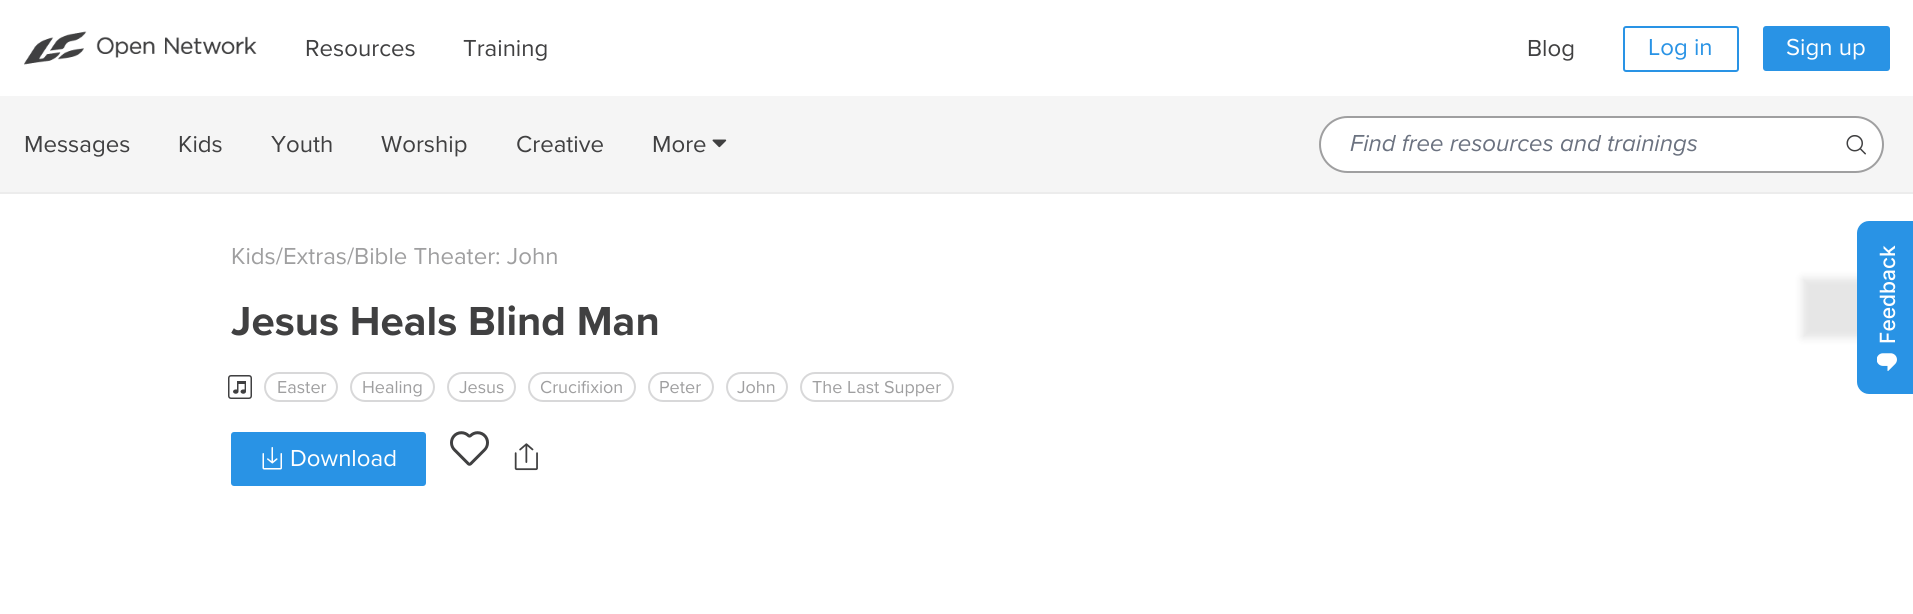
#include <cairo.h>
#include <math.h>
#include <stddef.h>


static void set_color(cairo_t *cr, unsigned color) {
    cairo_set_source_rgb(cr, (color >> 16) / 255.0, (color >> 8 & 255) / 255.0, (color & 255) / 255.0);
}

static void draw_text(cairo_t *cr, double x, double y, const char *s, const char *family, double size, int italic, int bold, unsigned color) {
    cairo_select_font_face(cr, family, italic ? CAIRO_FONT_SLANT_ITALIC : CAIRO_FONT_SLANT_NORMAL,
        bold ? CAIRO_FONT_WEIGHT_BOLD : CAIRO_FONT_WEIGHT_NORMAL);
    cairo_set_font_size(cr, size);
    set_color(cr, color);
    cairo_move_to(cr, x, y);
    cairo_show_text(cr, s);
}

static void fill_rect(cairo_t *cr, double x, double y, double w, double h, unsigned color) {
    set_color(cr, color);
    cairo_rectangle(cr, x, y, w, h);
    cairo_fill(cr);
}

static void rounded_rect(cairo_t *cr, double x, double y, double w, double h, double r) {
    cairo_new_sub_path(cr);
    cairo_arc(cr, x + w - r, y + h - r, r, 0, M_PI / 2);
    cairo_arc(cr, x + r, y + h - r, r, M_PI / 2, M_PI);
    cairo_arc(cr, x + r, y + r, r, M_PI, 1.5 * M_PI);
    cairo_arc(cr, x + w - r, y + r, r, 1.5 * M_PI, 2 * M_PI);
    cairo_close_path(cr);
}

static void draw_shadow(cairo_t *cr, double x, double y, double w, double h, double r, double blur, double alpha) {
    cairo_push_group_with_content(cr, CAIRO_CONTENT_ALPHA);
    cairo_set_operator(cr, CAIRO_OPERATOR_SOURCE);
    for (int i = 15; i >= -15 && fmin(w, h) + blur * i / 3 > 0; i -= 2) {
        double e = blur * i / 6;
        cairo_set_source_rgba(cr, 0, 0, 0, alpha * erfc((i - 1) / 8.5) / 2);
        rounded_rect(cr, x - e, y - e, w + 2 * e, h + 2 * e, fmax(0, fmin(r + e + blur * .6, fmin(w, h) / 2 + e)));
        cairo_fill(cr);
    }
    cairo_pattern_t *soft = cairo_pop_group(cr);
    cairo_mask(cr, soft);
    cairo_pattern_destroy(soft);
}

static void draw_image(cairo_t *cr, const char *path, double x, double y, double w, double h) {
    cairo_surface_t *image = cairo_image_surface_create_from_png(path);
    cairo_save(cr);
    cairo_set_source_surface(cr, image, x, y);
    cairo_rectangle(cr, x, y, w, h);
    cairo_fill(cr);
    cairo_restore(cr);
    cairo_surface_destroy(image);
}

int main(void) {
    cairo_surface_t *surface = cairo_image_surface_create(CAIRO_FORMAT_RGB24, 1913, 614);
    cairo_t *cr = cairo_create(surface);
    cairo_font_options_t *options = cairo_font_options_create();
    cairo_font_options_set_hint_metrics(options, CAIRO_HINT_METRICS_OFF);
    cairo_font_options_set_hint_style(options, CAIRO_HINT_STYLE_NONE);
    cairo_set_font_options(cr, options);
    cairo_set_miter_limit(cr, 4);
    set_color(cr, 0xFFFFFF);
    cairo_paint(cr);
    draw_image(cr, "assets/img1.png", 24, 31, 233, 34);
    draw_text(cr, 305, 56, "Resources", "Proxima Nova", 24, 0, 0, 0x404041);
    draw_text(cr, 463, 56, "Training", "Proxima Nova", 24, 0, 0, 0x404041);
    draw_text(cr, 1527, 56, "Blog", "Proxima Nova", 24, 0, 0, 0x404041);
    rounded_rect(cr, 1624, 27, 114, 44, 2);
    set_color(cr, 0x2993E5);
    cairo_stroke(cr);
    draw_text(cr, 1648, 55, "Log in", "Proxima Nova", 24, 0, 0, 0x2993E5);
    rounded_rect(cr, 1763, 26, 127, 45, 3);
    cairo_fill(cr);
    draw_text(cr, 1786, 55, "Sign up", "Proxima Nova", 24, 0, 0, 0xFFFFFF);
    fill_rect(cr, 0, 192, 1913, 2, 0xECECEC);
    fill_rect(cr, 0, 96, 1913, 96, 0xF5F5F5);
    draw_text(cr, 24, 152, "Messages", "Proxima Nova", 24, 0, 0, 0x404041);
    draw_text(cr, 178, 152, "Kids", "Proxima Nova", 24, 0, 0, 0x404041);
    draw_text(cr, 271, 152, "Youth", "Proxima Nova", 24, 0, 0, 0x404041);
    draw_text(cr, 381, 152, "Worship", "Proxima Nova", 24, 0, 0, 0x404041);
    draw_text(cr, 516, 152, "Creative", "Proxima Nova", 24, 0, 0, 0x404041);
    draw_text(cr, 652, 152, "More", "Proxima Nova", 24, 0, 0, 0x404041);
    draw_image(cr, "assets/img2.png", 712, 139, 15, 9);
    set_color(cr, 0xFFFFFF);
    rounded_rect(cr, 1320, 117, 563, 55, 27.5);
    cairo_fill_preserve(cr);
    set_color(cr, 0x9F9FA0);
    cairo_stroke(cr);
    draw_text(cr, 1350, 151, "Find free resources and trainings", "Proxima Nova", 24, 1, 0, 0x6B7280);
    draw_image(cr, "assets/img3.png", 1846, 135, 20, 20);
    draw_text(cr, 231, 264, "Kids/Extras/Bible Theater: John", "Proxima Nova", 24, 0, 0, 0x9F9FA0);
    draw_text(cr, 231, 335, "Jesus Heals Blind Man", "Proxima Nova", 42, 0, 1, 0x404041);
    draw_image(cr, "assets/img4.png", 228, 375, 24, 24);
    rounded_rect(cr, 265, 373, 72, 28, 14);
    set_color(cr, 0xD8D8D9);
    cairo_stroke(cr);
    draw_text(cr, 277, 393, "Easter", "Proxima Nova", 18, 0, 0, 0x9F9FA0);
    rounded_rect(cr, 351, 373, 83, 28, 14);
    set_color(cr, 0xD8D8D9);
    cairo_stroke(cr);
    draw_text(cr, 362, 393, "Healing", "Proxima Nova", 18, 0, 0, 0x9F9FA0);
    rounded_rect(cr, 448, 373, 67, 28, 14);
    set_color(cr, 0xD8D8D9);
    cairo_stroke(cr);
    draw_text(cr, 459, 393, "Jesus", "Proxima Nova", 18, 0, 0, 0x9F9FA0);
    rounded_rect(cr, 529, 373, 106, 28, 14);
    set_color(cr, 0xD8D8D9);
    cairo_stroke(cr);
    draw_text(cr, 540, 393, "Crucifixion", "Proxima Nova", 18, 0, 0, 0x9F9FA0);
    rounded_rect(cr, 649, 373, 64, 28, 14);
    set_color(cr, 0xD8D8D9);
    cairo_stroke(cr);
    draw_text(cr, 659, 393, "Peter", "Proxima Nova", 18, 0, 0, 0x9F9FA0);
    rounded_rect(cr, 727, 373, 60, 28, 14);
    set_color(cr, 0xD8D8D9);
    cairo_stroke(cr);
    draw_text(cr, 737, 393, "John", "Proxima Nova", 18, 0, 0, 0x9F9FA0);
    rounded_rect(cr, 801, 373, 152, 28, 14);
    set_color(cr, 0xD8D8D9);
    cairo_stroke(cr);
    draw_text(cr, 812, 393, "The Last Supper", "Proxima Nova", 18, 0, 0, 0x9F9FA0);
    set_color(cr, 0x2993E5);
    rounded_rect(cr, 231, 432, 195, 54, 3);
    cairo_fill(cr);
    draw_image(cr, "assets/img5.png", 262, 447, 20, 23);
    draw_text(cr, 290, 466, "Download", "Proxima Nova", 24, 0, 0, 0xFFFFFF);
    draw_image(cr, "assets/img6.png", 450, 431, 39, 35);
    draw_image(cr, "assets/img7.png", 514, 443, 24, 28);
    set_color(cr, 0x000000);
    draw_shadow(cr, 1802, 278, 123, 60, 0, 4, 0.1);
    set_color(cr, 0x2993E5);
    cairo_new_path(cr);
    cairo_move_to(cr, 1857, 382);
    cairo_line_to(cr, 1857, 233);
    cairo_curve_to(cr, 1857, 227, 1862, 221, 1869, 221);
    cairo_line_to(cr, 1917, 221);
    cairo_line_to(cr, 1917, 394);
    cairo_line_to(cr, 1869, 394);
    cairo_curve_to(cr, 1862, 394, 1857, 388, 1857, 382);
    cairo_close_path(cr);
    cairo_fill(cr);
    cairo_save(cr);
    cairo_translate(cr, 1895, 344);
    cairo_rotate(cr, -90 * M_PI / 180);
    draw_text(cr, 0, 0, "Feedback", "Inter Medium", 21, 0, 0, 0xFFFFFF);
    cairo_restore(cr);
    draw_image(cr, "assets/img8.png", 1877, 353, 20, 18);
    cairo_surface_write_to_png(surface, "output.png");
    cairo_font_options_destroy(options);
    cairo_destroy(cr);
    cairo_surface_destroy(surface);
    return 0;
}
